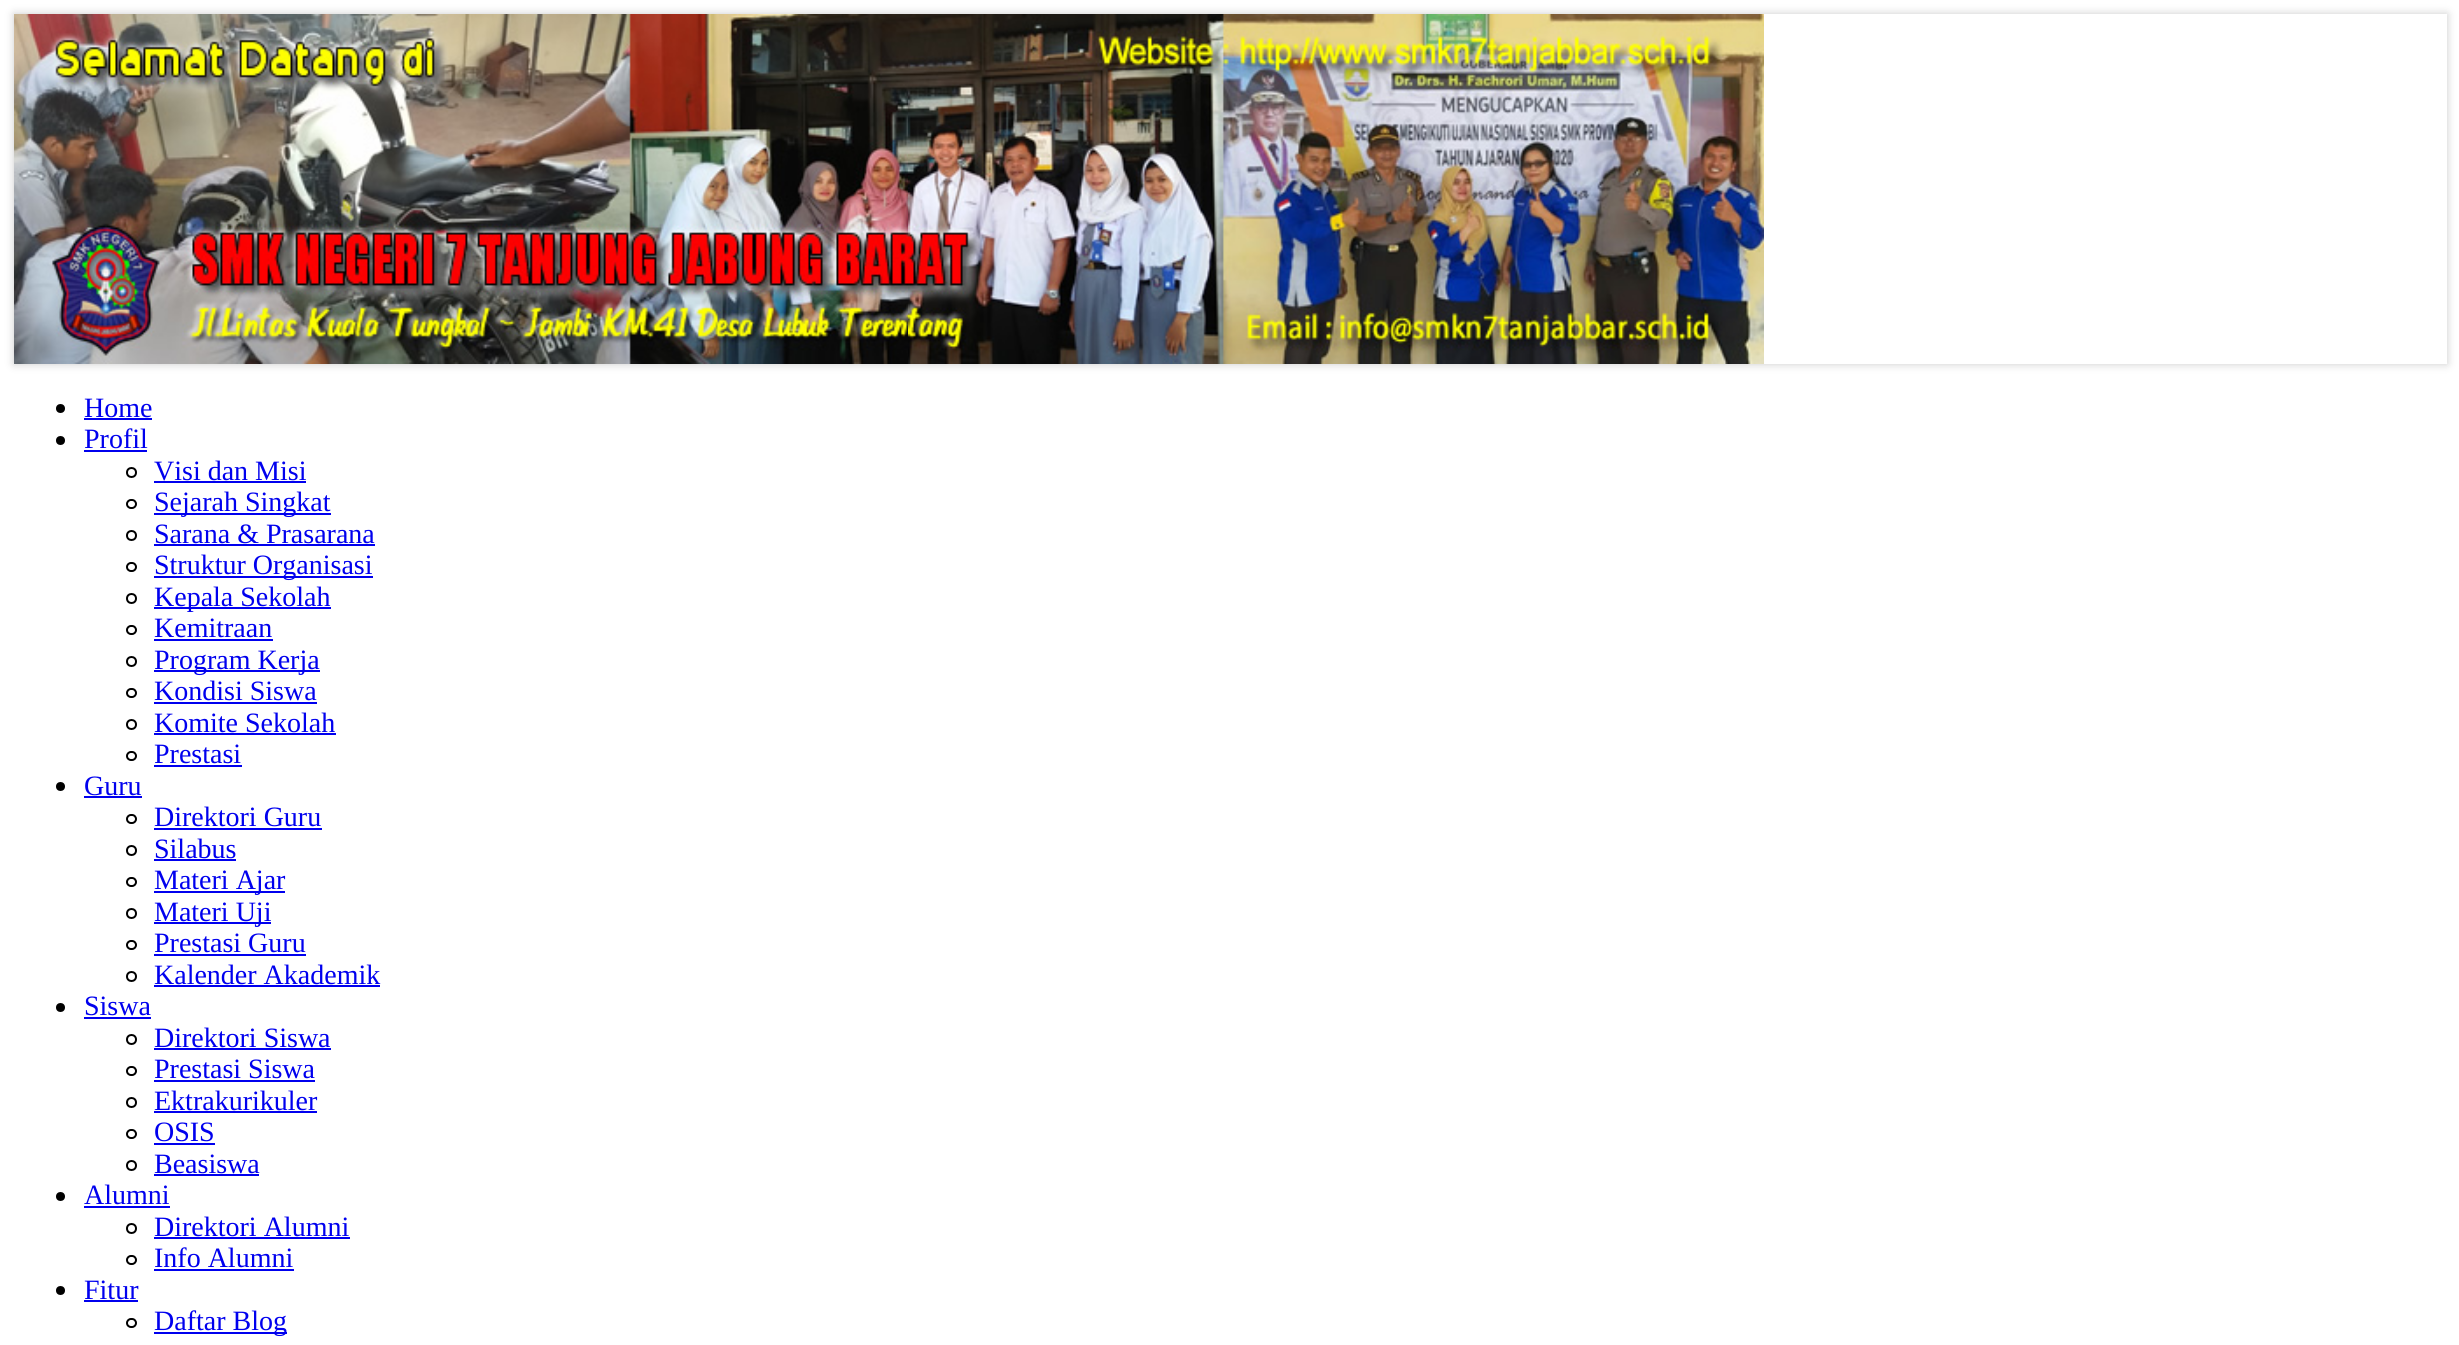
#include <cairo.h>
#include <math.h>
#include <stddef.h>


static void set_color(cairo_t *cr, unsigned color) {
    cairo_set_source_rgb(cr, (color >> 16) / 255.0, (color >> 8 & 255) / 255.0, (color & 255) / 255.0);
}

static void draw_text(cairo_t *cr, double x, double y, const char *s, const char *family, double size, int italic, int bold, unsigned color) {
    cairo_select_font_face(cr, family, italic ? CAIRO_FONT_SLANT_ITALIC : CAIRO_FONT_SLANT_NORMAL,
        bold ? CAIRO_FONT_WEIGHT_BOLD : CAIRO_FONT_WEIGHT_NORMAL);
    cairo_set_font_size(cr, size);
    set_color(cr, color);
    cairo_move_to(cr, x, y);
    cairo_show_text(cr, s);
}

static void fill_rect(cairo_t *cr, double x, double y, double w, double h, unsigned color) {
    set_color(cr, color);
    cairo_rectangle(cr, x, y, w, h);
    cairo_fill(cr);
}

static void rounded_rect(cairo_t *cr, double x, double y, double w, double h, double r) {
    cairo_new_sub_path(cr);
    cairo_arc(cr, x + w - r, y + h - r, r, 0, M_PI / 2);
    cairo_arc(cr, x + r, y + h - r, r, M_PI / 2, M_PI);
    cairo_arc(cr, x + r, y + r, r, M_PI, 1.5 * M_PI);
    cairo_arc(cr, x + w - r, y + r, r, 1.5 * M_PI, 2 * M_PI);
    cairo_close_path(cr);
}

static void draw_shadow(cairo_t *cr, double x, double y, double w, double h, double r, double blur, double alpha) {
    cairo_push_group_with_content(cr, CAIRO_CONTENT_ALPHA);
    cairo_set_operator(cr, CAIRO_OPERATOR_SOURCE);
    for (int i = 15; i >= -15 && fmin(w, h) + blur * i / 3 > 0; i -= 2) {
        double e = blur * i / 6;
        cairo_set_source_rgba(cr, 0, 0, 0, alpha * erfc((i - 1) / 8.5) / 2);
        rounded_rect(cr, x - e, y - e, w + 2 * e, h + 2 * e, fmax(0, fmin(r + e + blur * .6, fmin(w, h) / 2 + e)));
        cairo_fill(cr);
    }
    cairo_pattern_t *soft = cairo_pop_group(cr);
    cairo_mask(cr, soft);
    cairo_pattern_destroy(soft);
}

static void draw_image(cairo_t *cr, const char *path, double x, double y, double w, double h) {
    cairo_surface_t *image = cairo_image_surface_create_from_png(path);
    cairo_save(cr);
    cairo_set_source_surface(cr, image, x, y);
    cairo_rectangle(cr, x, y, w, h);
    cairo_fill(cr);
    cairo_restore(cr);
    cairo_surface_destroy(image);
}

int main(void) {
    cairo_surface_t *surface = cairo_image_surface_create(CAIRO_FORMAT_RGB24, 2459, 1345);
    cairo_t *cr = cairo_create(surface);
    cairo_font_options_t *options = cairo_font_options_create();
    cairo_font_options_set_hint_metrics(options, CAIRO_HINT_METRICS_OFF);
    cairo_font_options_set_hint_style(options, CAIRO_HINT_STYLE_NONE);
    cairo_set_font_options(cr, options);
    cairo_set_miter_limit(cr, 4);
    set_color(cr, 0xFFFFFF);
    cairo_paint(cr);
    cairo_save(cr);
    cairo_set_fill_rule(cr, CAIRO_FILL_RULE_EVEN_ODD);
    cairo_new_path(cr);
    cairo_move_to(cr, 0, 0);
    cairo_line_to(cr, 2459, 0);
    cairo_line_to(cr, 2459, 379);
    cairo_line_to(cr, 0, 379);
    cairo_close_path(cr);
    cairo_move_to(cr, 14, 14);
    cairo_line_to(cr, 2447, 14);
    cairo_line_to(cr, 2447, 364);
    cairo_line_to(cr, 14, 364);
    cairo_close_path(cr);
    cairo_clip(cr);
    set_color(cr, 0xCCCCCC);
    draw_shadow(cr, 14, 14, 2433, 350, 0, 4.5, 1);
    cairo_restore(cr);
    draw_image(cr, "assets/img1.png", 14, 14, 1750, 350);
    set_color(cr, 0x000000);
    cairo_arc(cr, 60.5, 408.5, 4.5, 0, 2 * M_PI);
    cairo_fill(cr);
    draw_text(cr, 84, 417, "Home", "Liberation Serif", 28, 0, 0, 0x0000EE);
    fill_rect(cr, 84, 418, 68, 2, 0x0000EE);
    set_color(cr, 0x000000);
    cairo_new_path(cr);
    cairo_arc(cr, 60.5, 440.5, 4.5, 0, 2 * M_PI);
    cairo_fill(cr);
    draw_text(cr, 84, 448, "Profil", "Liberation Serif", 28, 0, 0, 0x0000EE);
    fill_rect(cr, 84, 450, 63, 2, 0x0000EE);
    cairo_new_path(cr);
    cairo_arc(cr, 131.5, 472.5, 4.5, 0, 2 * M_PI);
    set_color(cr, 0x000000);
    cairo_stroke(cr);
    draw_text(cr, 154, 480, "Visi dan Misi", "Liberation Serif", 28, 0, 0, 0x0000EE);
    fill_rect(cr, 154, 481, 152, 2, 0x0000EE);
    rounded_rect(cr, 127, 500, 9, 8, 4);
    set_color(cr, 0x000000);
    cairo_stroke(cr);
    fill_rect(cr, 154, 513, 177, 2, 0x0000EE);
    draw_text(cr, 154, 511, "Sejarah Singkat", "Liberation Serif", 28, 0, 0, 0x0000EE);
    cairo_new_path(cr);
    cairo_arc(cr, 131.5, 535.5, 4.5, 0, 2 * M_PI);
    set_color(cr, 0x000000);
    cairo_stroke(cr);
    draw_text(cr, 154, 543, "Sarana & Prasarana", "Liberation Serif", 28, 0, 0, 0x0000EE);
    fill_rect(cr, 154, 544, 221, 2, 0x0000EE);
    rounded_rect(cr, 127, 563, 9, 8, 4);
    set_color(cr, 0x000000);
    cairo_stroke(cr);
    fill_rect(cr, 154, 576, 219, 2, 0x0000EE);
    draw_text(cr, 154, 574, "Struktur Organisasi", "Liberation Serif", 28, 0, 0, 0x0000EE);
    cairo_new_path(cr);
    cairo_arc(cr, 131.5, 598.5, 4.5, 0, 2 * M_PI);
    set_color(cr, 0x000000);
    cairo_stroke(cr);
    fill_rect(cr, 154, 607, 177, 2, 0x0000EE);
    draw_text(cr, 154, 606, "Kepala Sekolah", "Liberation Serif", 28, 0, 0, 0x0000EE);
    rounded_rect(cr, 127, 626, 9, 8, 4);
    set_color(cr, 0x000000);
    cairo_stroke(cr);
    draw_text(cr, 154, 637, "Kemitraan", "Liberation Serif", 28, 0, 0, 0x0000EE);
    fill_rect(cr, 154, 639, 119, 2, 0x0000EE);
    cairo_new_path(cr);
    cairo_arc(cr, 131.5, 661.5, 4.5, 0, 2 * M_PI);
    set_color(cr, 0x000000);
    cairo_stroke(cr);
    fill_rect(cr, 154, 670, 166, 2, 0x0000EE);
    draw_text(cr, 154, 669, "Program Kerja", "Liberation Serif", 28, 0, 0, 0x0000EE);
    rounded_rect(cr, 127, 689, 9, 8, 4);
    set_color(cr, 0x000000);
    cairo_stroke(cr);
    draw_text(cr, 154, 700, "Kondisi Siswa", "Liberation Serif", 28, 0, 0, 0x0000EE);
    fill_rect(cr, 154, 702, 163, 2, 0x0000EE);
    cairo_new_path(cr);
    cairo_arc(cr, 131.5, 724.5, 4.5, 0, 2 * M_PI);
    set_color(cr, 0x000000);
    cairo_stroke(cr);
    draw_text(cr, 154, 732, "Komite Sekolah", "Liberation Serif", 28, 0, 0, 0x0000EE);
    fill_rect(cr, 154, 733, 182, 2, 0x0000EE);
    rounded_rect(cr, 127, 752, 9, 8, 4);
    set_color(cr, 0x000000);
    cairo_stroke(cr);
    draw_text(cr, 154, 763, "Prestasi", "Liberation Serif", 28, 0, 0, 0x0000EE);
    fill_rect(cr, 154, 765, 88, 2, 0x0000EE);
    set_color(cr, 0x000000);
    cairo_new_path(cr);
    cairo_arc(cr, 60.5, 786.5, 4.5, 0, 2 * M_PI);
    cairo_fill(cr);
    draw_text(cr, 84, 795, "Guru", "Liberation Serif", 28, 0, 0, 0x0000EE);
    fill_rect(cr, 84, 796, 58, 2, 0x0000EE);
    rounded_rect(cr, 127, 815, 9, 8, 4);
    set_color(cr, 0x000000);
    cairo_stroke(cr);
    draw_text(cr, 154, 826, "Direktori Guru", "Liberation Serif", 28, 0, 0, 0x0000EE);
    fill_rect(cr, 154, 828, 168, 2, 0x0000EE);
    cairo_new_path(cr);
    cairo_arc(cr, 131.5, 850.5, 4.5, 0, 2 * M_PI);
    set_color(cr, 0x000000);
    cairo_stroke(cr);
    draw_text(cr, 154, 858, "Silabus", "Liberation Serif", 28, 0, 0, 0x0000EE);
    fill_rect(cr, 154, 859, 82, 2, 0x0000EE);
    rounded_rect(cr, 127, 878, 9, 8, 4);
    set_color(cr, 0x000000);
    cairo_stroke(cr);
    fill_rect(cr, 154, 891, 131, 2, 0x0000EE);
    draw_text(cr, 154, 889, "Materi Ajar", "Liberation Serif", 28, 0, 0, 0x0000EE);
    cairo_new_path(cr);
    cairo_arc(cr, 131.5, 913.5, 4.5, 0, 2 * M_PI);
    set_color(cr, 0x000000);
    cairo_stroke(cr);
    fill_rect(cr, 154, 922, 117, 2, 0x0000EE);
    draw_text(cr, 154, 921, "Materi Uji", "Liberation Serif", 28, 0, 0, 0x0000EE);
    rounded_rect(cr, 127, 941, 9, 8, 4);
    set_color(cr, 0x000000);
    cairo_stroke(cr);
    draw_text(cr, 154, 952, "Prestasi Guru", "Liberation Serif", 28, 0, 0, 0x0000EE);
    fill_rect(cr, 154, 954, 152, 2, 0x0000EE);
    cairo_new_path(cr);
    cairo_arc(cr, 131.5, 976.5, 4.5, 0, 2 * M_PI);
    set_color(cr, 0x000000);
    cairo_stroke(cr);
    draw_text(cr, 154, 984, "Kalender Akademik", "Liberation Serif", 28, 0, 0, 0x0000EE);
    fill_rect(cr, 154, 985, 226, 2, 0x0000EE);
    set_color(cr, 0x000000);
    cairo_new_path(cr);
    cairo_arc(cr, 60.5, 1007.5, 4.5, 0, 2 * M_PI);
    cairo_fill(cr);
    draw_text(cr, 84, 1015, "Siswa", "Liberation Serif", 28, 0, 0, 0x0000EE);
    fill_rect(cr, 84, 1017, 67, 2, 0x0000EE);
    cairo_new_path(cr);
    cairo_arc(cr, 131.5, 1039.5, 4.5, 0, 2 * M_PI);
    set_color(cr, 0x000000);
    cairo_stroke(cr);
    draw_text(cr, 154, 1047, "Direktori Siswa", "Liberation Serif", 28, 0, 0, 0x0000EE);
    fill_rect(cr, 154, 1048, 177, 2, 0x0000EE);
    rounded_rect(cr, 127, 1067, 9, 8, 4);
    set_color(cr, 0x000000);
    cairo_stroke(cr);
    draw_text(cr, 154, 1078, "Prestasi Siswa", "Liberation Serif", 28, 0, 0, 0x0000EE);
    fill_rect(cr, 154, 1080, 161, 2, 0x0000EE);
    cairo_new_path(cr);
    cairo_arc(cr, 131.5, 1102.5, 4.5, 0, 2 * M_PI);
    set_color(cr, 0x000000);
    cairo_stroke(cr);
    draw_text(cr, 154, 1110, "Ektrakurikuler", "Liberation Serif", 28, 0, 0, 0x0000EE);
    fill_rect(cr, 154, 1111, 163, 2, 0x0000EE);
    rounded_rect(cr, 127, 1130, 9, 8, 4);
    set_color(cr, 0x000000);
    cairo_stroke(cr);
    draw_text(cr, 154, 1141, "OSIS", "Liberation Serif", 28, 0, 0, 0x0000EE);
    fill_rect(cr, 154, 1143, 61, 2, 0x0000EE);
    cairo_new_path(cr);
    cairo_arc(cr, 131.5, 1165.5, 4.5, 0, 2 * M_PI);
    set_color(cr, 0x000000);
    cairo_stroke(cr);
    draw_text(cr, 154, 1173, "Beasiswa", "Liberation Serif", 28, 0, 0, 0x0000EE);
    fill_rect(cr, 154, 1174, 105, 2, 0x0000EE);
    set_color(cr, 0x000000);
    cairo_new_path(cr);
    cairo_arc(cr, 60.5, 1196.5, 4.5, 0, 2 * M_PI);
    cairo_fill(cr);
    draw_text(cr, 84, 1204, "Alumni", "Liberation Serif", 28, 0, 0, 0x0000EE);
    fill_rect(cr, 84, 1206, 86, 2, 0x0000EE);
    cairo_new_path(cr);
    cairo_arc(cr, 131.5, 1228.5, 4.5, 0, 2 * M_PI);
    set_color(cr, 0x000000);
    cairo_stroke(cr);
    draw_text(cr, 154, 1236, "Direktori Alumni", "Liberation Serif", 28, 0, 0, 0x0000EE);
    fill_rect(cr, 154, 1237, 196, 2, 0x0000EE);
    rounded_rect(cr, 127, 1256, 9, 8, 4);
    set_color(cr, 0x000000);
    cairo_stroke(cr);
    draw_text(cr, 154, 1267, "Info Alumni", "Liberation Serif", 28, 0, 0, 0x0000EE);
    fill_rect(cr, 154, 1269, 140, 2, 0x0000EE);
    set_color(cr, 0x000000);
    cairo_new_path(cr);
    cairo_arc(cr, 60.5, 1290.5, 4.5, 0, 2 * M_PI);
    cairo_fill(cr);
    draw_text(cr, 84, 1299, "Fitur", "Liberation Serif", 28, 0, 0, 0x0000EE);
    fill_rect(cr, 84, 1300, 54, 2, 0x0000EE);
    rounded_rect(cr, 127, 1319, 9, 8, 4);
    set_color(cr, 0x000000);
    cairo_stroke(cr);
    fill_rect(cr, 154, 1332, 133, 2, 0x0000EE);
    draw_text(cr, 154, 1330, "Daftar Blog", "Liberation Serif", 28, 0, 0, 0x0000EE);
    cairo_surface_write_to_png(surface, "output.png");
    cairo_font_options_destroy(options);
    cairo_destroy(cr);
    cairo_surface_destroy(surface);
    return 0;
}
